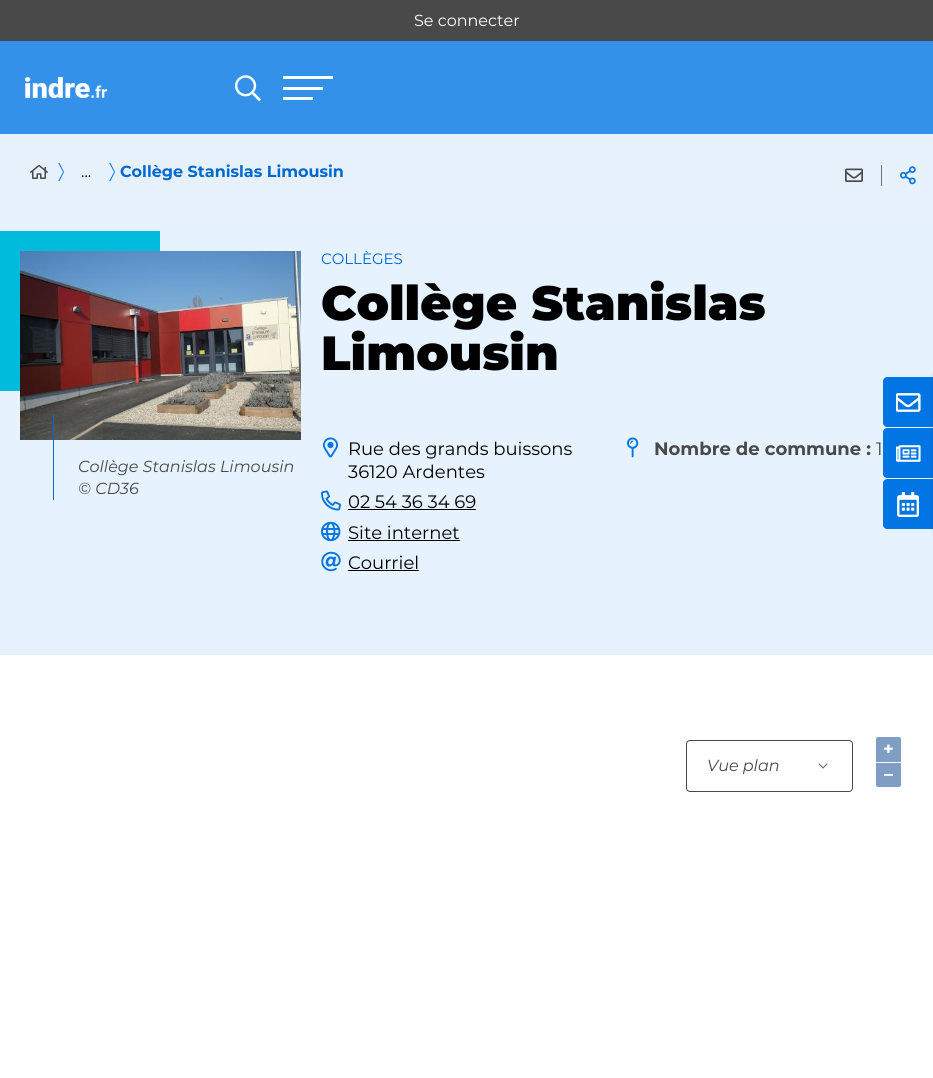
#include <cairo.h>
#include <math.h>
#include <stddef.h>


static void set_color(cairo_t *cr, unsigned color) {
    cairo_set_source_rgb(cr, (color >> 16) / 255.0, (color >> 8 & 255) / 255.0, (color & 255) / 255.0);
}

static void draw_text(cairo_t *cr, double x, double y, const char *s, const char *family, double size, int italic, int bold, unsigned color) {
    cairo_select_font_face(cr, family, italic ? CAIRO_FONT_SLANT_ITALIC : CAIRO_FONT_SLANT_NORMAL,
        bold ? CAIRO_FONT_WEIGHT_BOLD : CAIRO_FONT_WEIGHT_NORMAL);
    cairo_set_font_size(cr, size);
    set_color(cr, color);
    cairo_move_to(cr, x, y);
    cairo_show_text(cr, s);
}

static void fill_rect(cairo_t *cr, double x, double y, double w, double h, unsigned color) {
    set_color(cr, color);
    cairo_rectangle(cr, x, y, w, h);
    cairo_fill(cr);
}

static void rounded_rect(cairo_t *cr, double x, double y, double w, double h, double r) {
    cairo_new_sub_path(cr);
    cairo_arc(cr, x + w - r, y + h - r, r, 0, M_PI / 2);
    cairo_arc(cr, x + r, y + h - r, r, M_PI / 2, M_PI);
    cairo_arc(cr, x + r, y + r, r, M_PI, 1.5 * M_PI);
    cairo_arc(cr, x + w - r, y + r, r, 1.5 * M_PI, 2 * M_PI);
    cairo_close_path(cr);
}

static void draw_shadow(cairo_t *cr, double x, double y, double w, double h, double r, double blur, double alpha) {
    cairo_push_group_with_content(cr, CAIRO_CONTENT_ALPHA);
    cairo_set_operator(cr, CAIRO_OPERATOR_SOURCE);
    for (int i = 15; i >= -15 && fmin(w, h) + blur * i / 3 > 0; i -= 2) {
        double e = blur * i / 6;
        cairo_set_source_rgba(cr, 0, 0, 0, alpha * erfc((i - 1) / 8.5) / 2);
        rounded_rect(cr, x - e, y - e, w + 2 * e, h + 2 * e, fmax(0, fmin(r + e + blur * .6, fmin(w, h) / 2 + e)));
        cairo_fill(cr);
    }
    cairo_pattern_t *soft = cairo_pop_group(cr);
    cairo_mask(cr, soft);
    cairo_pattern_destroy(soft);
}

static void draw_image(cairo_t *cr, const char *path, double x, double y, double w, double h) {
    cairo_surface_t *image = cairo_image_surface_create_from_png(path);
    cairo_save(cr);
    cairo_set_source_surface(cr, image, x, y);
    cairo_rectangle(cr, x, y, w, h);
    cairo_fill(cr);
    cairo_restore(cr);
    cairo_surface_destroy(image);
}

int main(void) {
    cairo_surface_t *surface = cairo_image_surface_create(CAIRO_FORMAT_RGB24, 933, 1078);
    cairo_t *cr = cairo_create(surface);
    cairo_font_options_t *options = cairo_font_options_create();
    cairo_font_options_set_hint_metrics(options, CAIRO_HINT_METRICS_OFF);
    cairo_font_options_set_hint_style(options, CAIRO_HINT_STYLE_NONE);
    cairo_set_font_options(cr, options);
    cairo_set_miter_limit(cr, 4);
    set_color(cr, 0xFFFFFF);
    cairo_paint(cr);
    fill_rect(cr, 0, 0, 933, 41, 0x494949);
    draw_text(cr, 414, 26, "Se connecter", "Montserrat", 16, 0, 0, 0xFFFFFF);
    fill_rect(cr, 0, 216, 933, 439, 0xE6F2FD);
    set_color(cr, 0x0175E4);
    cairo_new_path(cr);
    cairo_move_to(cr, 887, 377);
    cairo_line_to(cr, 933, 377);
    cairo_line_to(cr, 933, 427);
    cairo_line_to(cr, 887, 427);
    cairo_curve_to(cr, 885, 427, 883, 425, 883, 423);
    cairo_line_to(cr, 883, 381);
    cairo_curve_to(cr, 883, 379, 885, 377, 887, 377);
    cairo_close_path(cr);
    cairo_fill(cr);
    set_color(cr, 0x000000);
    draw_shadow(cr, 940, 377, 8, 50, 0, 5, 0.7);
    draw_image(cr, "assets/img1.png", 896, 393, 25, 19);
    set_color(cr, 0x0175E4);
    cairo_new_path(cr);
    cairo_move_to(cr, 887, 428);
    cairo_line_to(cr, 933, 428);
    cairo_line_to(cr, 933, 478);
    cairo_line_to(cr, 887, 478);
    cairo_curve_to(cr, 885, 478, 883, 476, 883, 474);
    cairo_line_to(cr, 883, 432);
    cairo_curve_to(cr, 883, 430, 885, 428, 887, 428);
    cairo_close_path(cr);
    cairo_fill(cr);
    set_color(cr, 0x000000);
    draw_shadow(cr, 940, 428, 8, 50, 0, 5, 0.7);
    draw_image(cr, "assets/img2.png", 896, 445, 25, 17);
    set_color(cr, 0x0175E4);
    cairo_new_path(cr);
    cairo_move_to(cr, 887, 479);
    cairo_line_to(cr, 933, 479);
    cairo_line_to(cr, 933, 529);
    cairo_line_to(cr, 887, 529);
    cairo_curve_to(cr, 885, 529, 883, 527, 883, 525);
    cairo_line_to(cr, 883, 483);
    cairo_curve_to(cr, 883, 481, 885, 479, 887, 479);
    cairo_close_path(cr);
    cairo_fill(cr);
    set_color(cr, 0x000000);
    draw_shadow(cr, 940, 479, 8, 50, 0, 5, 0.7);
    draw_image(cr, "assets/img3.png", 897, 492, 22, 25);
    fill_rect(cr, 0, 41, 933, 93, 0x3491E9);
    draw_image(cr, "assets/img4.png", 25, 77, 84, 21);
    draw_image(cr, "assets/img5.png", 235, 75, 26, 27);
    fill_rect(cr, 283, 76, 50, 3, 0xFFFFFF);
    fill_rect(cr, 283, 87, 40, 3, 0xFFFFFF);
    fill_rect(cr, 283, 97, 30, 3, 0xFFFFFF);
    fill_rect(cr, 0, 134, 933, 82, 0xE6F1FC);
    draw_image(cr, "assets/img6.png", 30, 165, 18, 14);
    cairo_save(cr);
    cairo_rectangle(cr, 57, 163, 7, 18);
    cairo_clip(cr);
    set_color(cr, 0x0175E4);
    cairo_new_path(cr);
    cairo_move_to(cr, 59, 182);
    cairo_line_to(cr, 58, 181.5);
    cairo_line_to(cr, 63, 172);
    cairo_line_to(cr, 58, 162.5);
    cairo_line_to(cr, 59, 162);
    cairo_line_to(cr, 64, 172);
    cairo_close_path(cr);
    cairo_fill(cr);
    cairo_restore(cr);
    draw_text(cr, 81, 177, "...", "Montserrat", 16, 0, 0, 0x000000);
    cairo_save(cr);
    cairo_rectangle(cr, 108, 163, 7, 18);
    cairo_clip(cr);
    set_color(cr, 0x0175E4);
    cairo_new_path(cr);
    cairo_move_to(cr, 110, 182);
    cairo_line_to(cr, 109, 181.5);
    cairo_line_to(cr, 114, 172);
    cairo_line_to(cr, 109, 162.5);
    cairo_line_to(cr, 110, 162);
    cairo_line_to(cr, 115, 172);
    cairo_close_path(cr);
    cairo_fill(cr);
    cairo_restore(cr);
    draw_text(cr, 120, 177, "Collège Stanislas Limousin", "Montserrat", 16, 0, 1, 0x0069CE);
    draw_image(cr, "assets/img7.png", 845, 168, 18, 14);
    fill_rect(cr, 881, 165, 1, 21, 0x727272);
    draw_image(cr, "assets/img8.png", 900, 166, 16, 19);
    set_color(cr, 0x00BBDB);
    cairo_new_path(cr);
    cairo_move_to(cr, 0, 231);
    cairo_line_to(cr, 0, 391);
    cairo_line_to(cr, 20, 391);
    cairo_line_to(cr, 20, 251);
    cairo_line_to(cr, 160, 251);
    cairo_line_to(cr, 160, 231);
    cairo_close_path(cr);
    cairo_fill(cr);
    draw_image(cr, "assets/img9.png", 20, 251, 281, 189);
    fill_rect(cr, 53, 414, 1, 86, 0x0069CE);
    draw_text(cr, 78, 472, "Collège Stanislas Limousin", "Montserrat", 16, 1, 0, 0x494949);
    draw_text(cr, 78, 494, "© CD36", "Montserrat", 16, 1, 0, 0x494949);
    draw_text(cr, 321, 264, "COLLÈGES", "Montserrat", 15, 0, 0, 0x0069CE);
    draw_text(cr, 321, 320, "Collège Stanislas", "Montserrat Black", 48, 0, 0, 0x000000);
    draw_text(cr, 321, 370, "Limousin", "Montserrat Black", 48, 0, 0, 0x000000);
    draw_image(cr, "assets/img10.png", 323, 437, 15, 21);
    draw_text(cr, 348, 455, "Rue des grands buissons", "Montserrat", 18, 0, 0, 0x000000);
    draw_text(cr, 348, 478, "36120 Ardentes", "Montserrat", 18, 0, 0, 0x000000);
    draw_image(cr, "assets/img11.png", 321, 490, 20, 21);
    draw_text(cr, 348, 508, "02 54 36 34 69", "Montserrat", 18, 0, 0, 0x000000);
    fill_rect(cr, 348, 509, 128, 1, 0x000000);
    draw_image(cr, "assets/img12.png", 321, 521, 20, 21);
    draw_text(cr, 348, 539, "Site internet", "Montserrat", 18, 0, 0, 0x000000);
    fill_rect(cr, 348, 540, 112, 1, 0x000000);
    draw_image(cr, "assets/img13.png", 321, 551, 20, 21);
    draw_text(cr, 348, 569, "Courriel", "Montserrat", 18, 0, 0, 0x000000);
    fill_rect(cr, 348, 570, 71, 1, 0x000000);
    draw_image(cr, "assets/img14.png", 627, 437, 12, 21);
    draw_text(cr, 654, 455, "Nombre de commune :", "Montserrat", 18, 0, 1, 0x494949);
    draw_text(cr, 876, 455, "1", "Montserrat", 18, 0, 0, 0x494949);
    draw_image(cr, "assets/img15.png", 818, 763, 10, 6);
    rounded_rect(cr, 686.5, 740.5, 166, 51, 3.5);
    cairo_set_line_width(cr, 1);
    cairo_stroke(cr);
    draw_text(cr, 707, 771, "Vue plan", "Montserrat", 16, 1, 0, 0x494949);
    set_color(cr, 0x809EC4);
    cairo_new_path(cr);
    cairo_move_to(cr, 878, 737);
    cairo_line_to(cr, 899, 737);
    cairo_curve_to(cr, 900, 737, 901, 738, 901, 739);
    cairo_line_to(cr, 901, 762);
    cairo_line_to(cr, 876, 762);
    cairo_line_to(cr, 876, 739);
    cairo_curve_to(cr, 876, 738, 877, 737, 878, 737);
    cairo_close_path(cr);
    cairo_fill(cr);
    draw_text(cr, 883, 755, "+", "Montserrat", 18, 0, 1, 0xFFFFFF);
    set_color(cr, 0x809EC4);
    cairo_new_path(cr);
    cairo_move_to(cr, 876, 763);
    cairo_line_to(cr, 901, 763);
    cairo_line_to(cr, 901, 785);
    cairo_curve_to(cr, 901, 786, 900, 787, 899, 787);
    cairo_line_to(cr, 878, 787);
    cairo_curve_to(cr, 877, 787, 876, 786, 876, 785);
    cairo_close_path(cr);
    cairo_fill(cr);
    draw_text(cr, 884, 780, "–", "Montserrat", 18, 0, 1, 0xFFFFFF);
    cairo_surface_write_to_png(surface, "output.png");
    cairo_font_options_destroy(options);
    cairo_destroy(cr);
    cairo_surface_destroy(surface);
    return 0;
}
